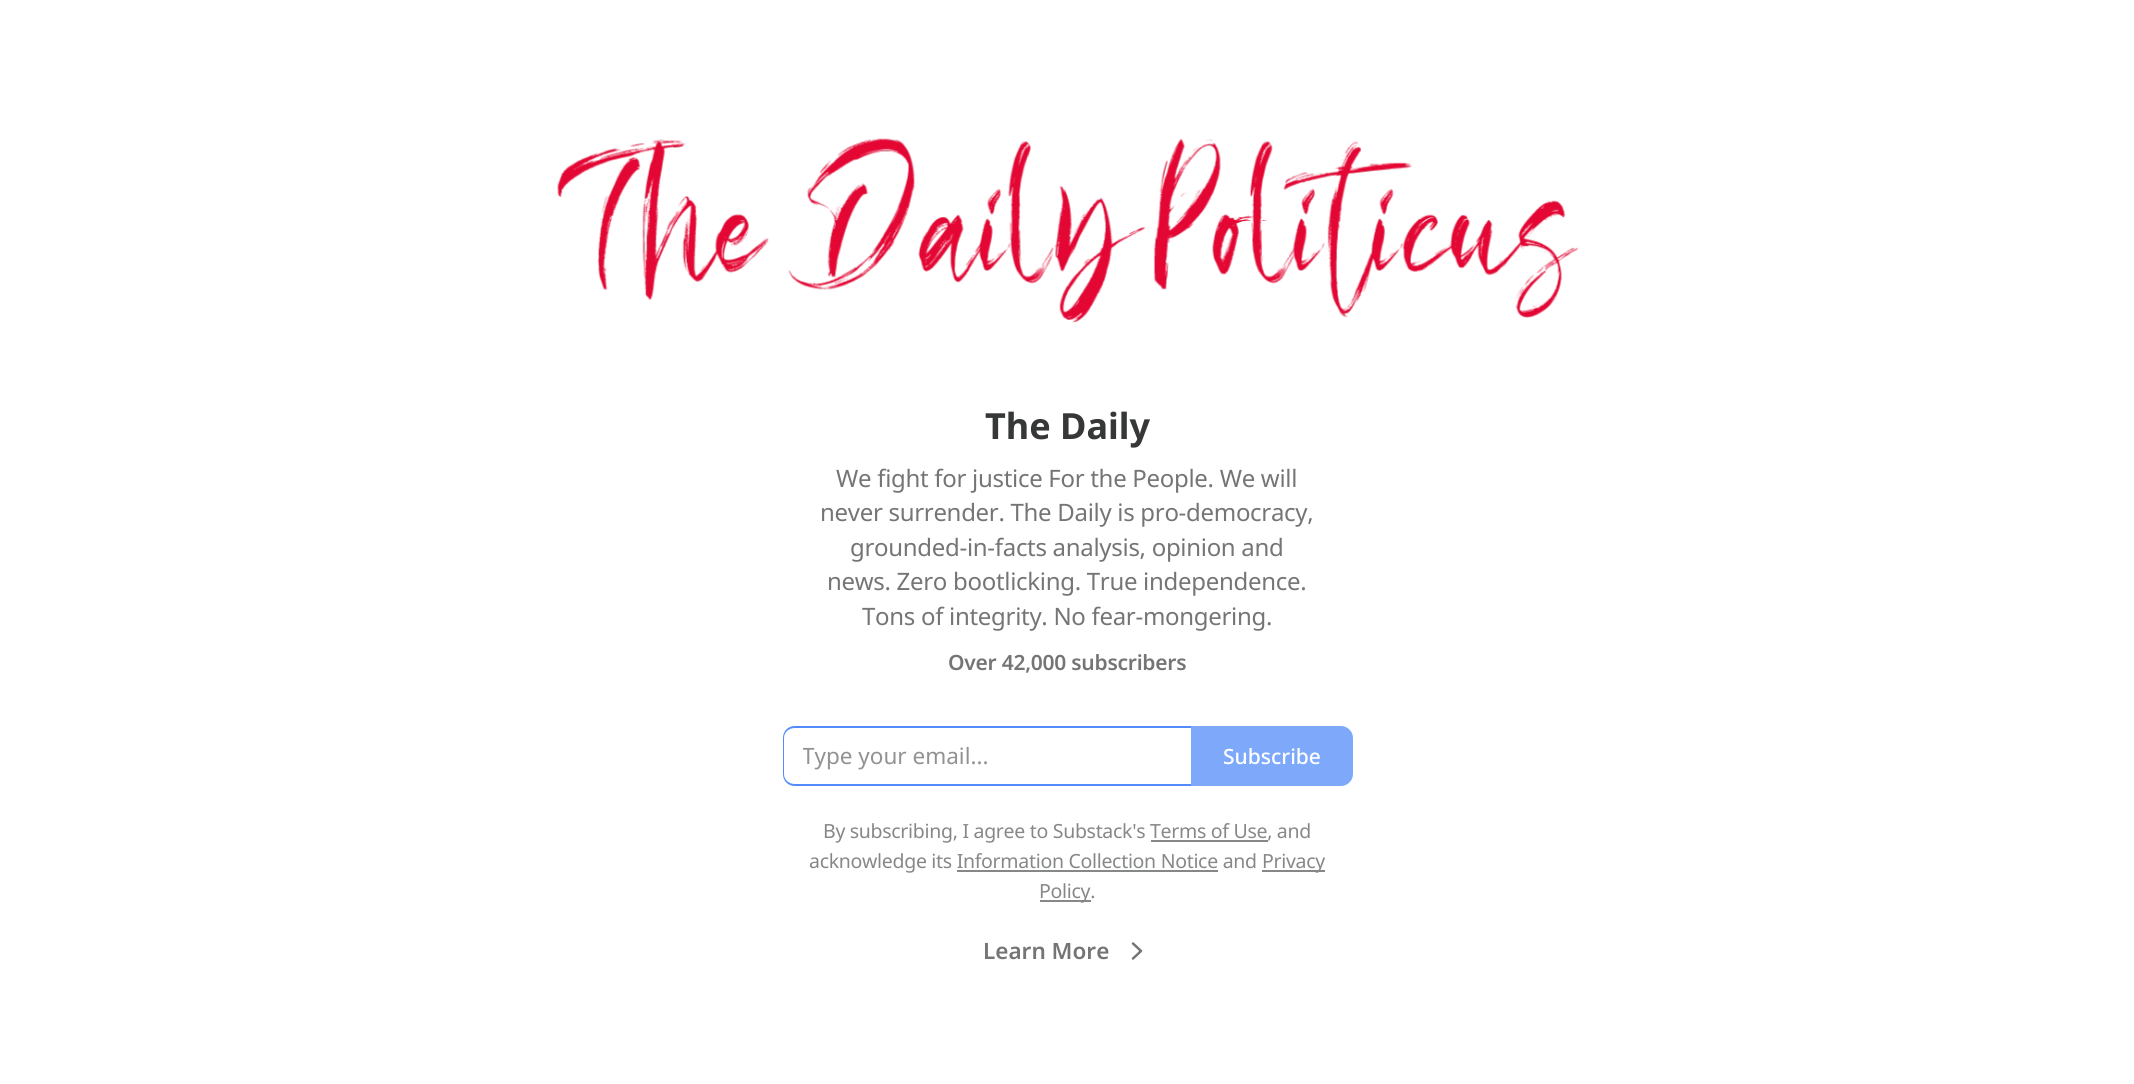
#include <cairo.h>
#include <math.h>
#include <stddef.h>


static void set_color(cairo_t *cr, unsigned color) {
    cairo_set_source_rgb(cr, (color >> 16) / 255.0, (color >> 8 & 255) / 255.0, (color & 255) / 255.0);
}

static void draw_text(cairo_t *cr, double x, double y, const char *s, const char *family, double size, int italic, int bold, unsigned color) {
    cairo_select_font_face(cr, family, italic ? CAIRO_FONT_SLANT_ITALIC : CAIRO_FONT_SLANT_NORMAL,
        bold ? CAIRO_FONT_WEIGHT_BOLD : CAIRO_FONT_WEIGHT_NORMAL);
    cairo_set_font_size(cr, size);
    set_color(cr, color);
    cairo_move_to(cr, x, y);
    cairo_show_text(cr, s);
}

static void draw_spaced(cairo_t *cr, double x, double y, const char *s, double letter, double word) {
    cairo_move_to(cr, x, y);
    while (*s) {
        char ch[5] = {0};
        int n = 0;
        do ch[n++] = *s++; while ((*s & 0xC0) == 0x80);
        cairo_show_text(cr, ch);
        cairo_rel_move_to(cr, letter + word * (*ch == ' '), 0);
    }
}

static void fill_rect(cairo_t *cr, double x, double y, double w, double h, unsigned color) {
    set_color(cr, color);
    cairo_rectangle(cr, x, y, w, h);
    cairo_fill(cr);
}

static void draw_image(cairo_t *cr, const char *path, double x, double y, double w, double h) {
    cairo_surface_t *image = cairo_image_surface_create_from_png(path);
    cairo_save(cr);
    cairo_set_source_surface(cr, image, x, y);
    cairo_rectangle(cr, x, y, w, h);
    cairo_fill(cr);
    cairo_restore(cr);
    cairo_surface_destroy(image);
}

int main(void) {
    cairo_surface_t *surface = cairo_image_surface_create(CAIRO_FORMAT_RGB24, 2134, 1084);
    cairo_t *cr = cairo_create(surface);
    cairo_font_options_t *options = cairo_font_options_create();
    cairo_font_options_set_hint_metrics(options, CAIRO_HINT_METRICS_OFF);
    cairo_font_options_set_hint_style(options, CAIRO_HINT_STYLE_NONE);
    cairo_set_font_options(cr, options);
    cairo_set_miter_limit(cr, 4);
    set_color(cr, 0xFFFFFF);
    cairo_paint(cr);
    draw_image(cr, "assets/img1.png", 557, 138, 1021, 185);
    draw_text(cr, 985, 439, "The Daily", "Noto Sans", 36, 0, 1, 0x363737);
    cairo_select_font_face(cr, "Noto Sans", CAIRO_FONT_SLANT_NORMAL, CAIRO_FONT_WEIGHT_NORMAL);
    cairo_set_font_size(cr, 24);
    set_color(cr, 0x757575);
    draw_spaced(cr, 836, 487, "We fight for justice For the People. We will", -0.3, 0);
    draw_spaced(cr, 820, 521, "never surrender. The Daily is pro-democracy,", -0.3, 0);
    draw_spaced(cr, 850, 556, "grounded-in-facts analysis, opinion and", -0.3, 0);
    draw_spaced(cr, 827, 590, "news. Zero bootlicking. True independence.", -0.3, 0);
    draw_spaced(cr, 862, 625, "Tons of integrity. No fear-mongering.", -0.3, 0);
    cairo_select_font_face(cr, "Noto Sans SemiBold", CAIRO_FONT_SLANT_NORMAL, CAIRO_FONT_WEIGHT_NORMAL);
    cairo_set_font_size(cr, 21);
    draw_spaced(cr, 948, 670, "Over 42,000 subscribers", -0.25, 0);
    set_color(cr, 0x538CFA);
    cairo_set_fill_rule(cr, CAIRO_FILL_RULE_EVEN_ODD);
    cairo_new_path(cr);
    cairo_move_to(cr, 795, 726);
    cairo_line_to(cr, 1191, 726);
    cairo_line_to(cr, 1191, 786);
    cairo_line_to(cr, 795, 786);
    cairo_curve_to(cr, 788, 786, 783, 781, 783, 774);
    cairo_line_to(cr, 783, 738);
    cairo_curve_to(cr, 783, 731, 788, 726, 795, 726);
    cairo_close_path(cr);
    cairo_move_to(cr, 795, 728);
    cairo_line_to(cr, 1191, 728);
    cairo_line_to(cr, 1191, 784);
    cairo_line_to(cr, 795, 784);
    cairo_curve_to(cr, 789, 784, 784, 780, 784, 774);
    cairo_line_to(cr, 784, 738);
    cairo_curve_to(cr, 784, 732, 789, 728, 795, 728);
    cairo_close_path(cr);
    cairo_fill(cr);
    cairo_save(cr);
    cairo_set_fill_rule(cr, CAIRO_FILL_RULE_WINDING);
    cairo_rectangle(cr, 803, 741, 370, 30);
    cairo_clip(cr);
    draw_text(cr, 802, 764, "Type your email...", "Noto Sans", 22.5, 0, 0, 0x929292);
    cairo_restore(cr);
    set_color(cr, 0x7EA9FB);
    cairo_new_path(cr);
    cairo_move_to(cr, 1192, 727);
    cairo_line_to(cr, 1341, 727);
    cairo_curve_to(cr, 1347, 727, 1352, 732, 1352, 738);
    cairo_line_to(cr, 1352, 774);
    cairo_curve_to(cr, 1352, 780, 1347, 785, 1341, 785);
    cairo_line_to(cr, 1192, 785);
    cairo_close_path(cr);
    cairo_fill_preserve(cr);
    cairo_stroke(cr);
    draw_text(cr, 1223, 764, "Subscribe", "Noto Sans Medium", 21, 0, 0, 0xFFFFFF);
    cairo_select_font_face(cr, "Noto Sans", CAIRO_FONT_SLANT_NORMAL, CAIRO_FONT_WEIGHT_NORMAL);
    cairo_set_font_size(cr, 19.5);
    set_color(cr, 0x868787);
    draw_spaced(cr, 823, 838, "By subscribing, I agree to Substack's Terms of Use, and", -0.3, 0);
    fill_rect(cr, 1151, 840, 117, 2, 0x868787);
    draw_spaced(cr, 809, 868, "acknowledge its Information Collection Notice and", -0.3, 0);
    fill_rect(cr, 1262, 870, 63, 2, 0x868787);
    draw_spaced(cr, 1262, 868, "Privacy", -0.3, 0);
    fill_rect(cr, 957, 870, 261, 2, 0x868787);
    fill_rect(cr, 1040, 900, 51, 2, 0x868787);
    draw_spaced(cr, 1039, 898, "Policy.", -0.3, 0);
    draw_text(cr, 983, 959, "Learn More", "Noto Sans SemiBold", 22.5, 0, 0, 0x757575);
    cairo_new_path(cr);
    cairo_move_to(cr, 1133, 958.5);
    cairo_line_to(cr, 1141, 951);
    cairo_line_to(cr, 1133, 943.5);
    cairo_set_line_width(cr, 2.5);
    cairo_set_line_cap(cr, CAIRO_LINE_CAP_ROUND);
    cairo_set_line_join(cr, CAIRO_LINE_JOIN_ROUND);
    cairo_stroke(cr);
    cairo_surface_write_to_png(surface, "output.png");
    cairo_font_options_destroy(options);
    cairo_destroy(cr);
    cairo_surface_destroy(surface);
    return 0;
}
